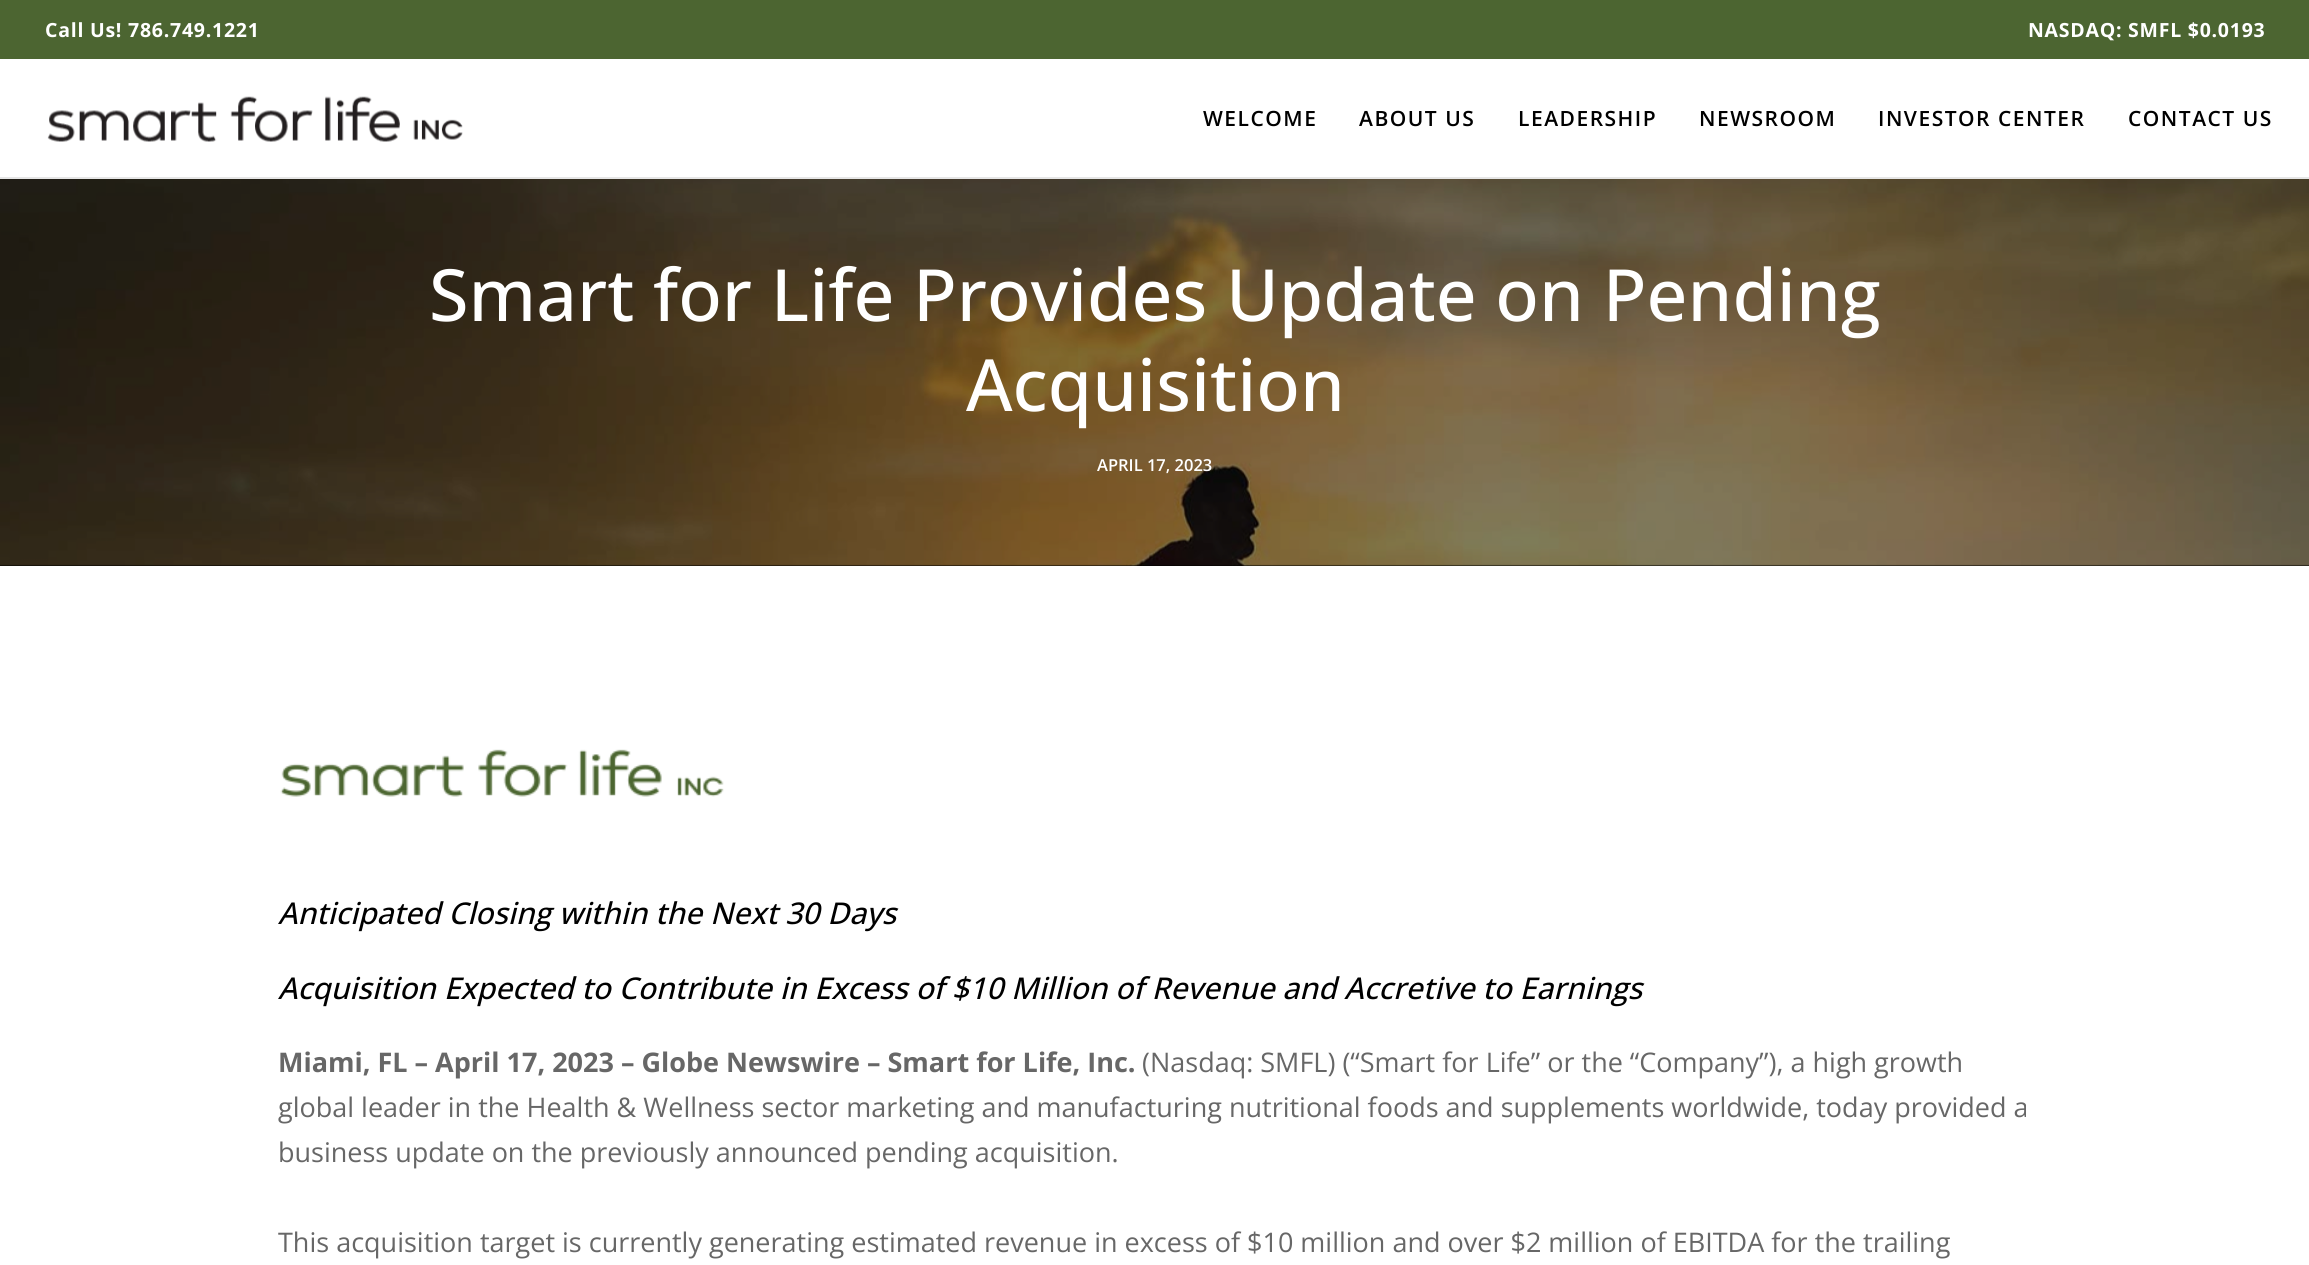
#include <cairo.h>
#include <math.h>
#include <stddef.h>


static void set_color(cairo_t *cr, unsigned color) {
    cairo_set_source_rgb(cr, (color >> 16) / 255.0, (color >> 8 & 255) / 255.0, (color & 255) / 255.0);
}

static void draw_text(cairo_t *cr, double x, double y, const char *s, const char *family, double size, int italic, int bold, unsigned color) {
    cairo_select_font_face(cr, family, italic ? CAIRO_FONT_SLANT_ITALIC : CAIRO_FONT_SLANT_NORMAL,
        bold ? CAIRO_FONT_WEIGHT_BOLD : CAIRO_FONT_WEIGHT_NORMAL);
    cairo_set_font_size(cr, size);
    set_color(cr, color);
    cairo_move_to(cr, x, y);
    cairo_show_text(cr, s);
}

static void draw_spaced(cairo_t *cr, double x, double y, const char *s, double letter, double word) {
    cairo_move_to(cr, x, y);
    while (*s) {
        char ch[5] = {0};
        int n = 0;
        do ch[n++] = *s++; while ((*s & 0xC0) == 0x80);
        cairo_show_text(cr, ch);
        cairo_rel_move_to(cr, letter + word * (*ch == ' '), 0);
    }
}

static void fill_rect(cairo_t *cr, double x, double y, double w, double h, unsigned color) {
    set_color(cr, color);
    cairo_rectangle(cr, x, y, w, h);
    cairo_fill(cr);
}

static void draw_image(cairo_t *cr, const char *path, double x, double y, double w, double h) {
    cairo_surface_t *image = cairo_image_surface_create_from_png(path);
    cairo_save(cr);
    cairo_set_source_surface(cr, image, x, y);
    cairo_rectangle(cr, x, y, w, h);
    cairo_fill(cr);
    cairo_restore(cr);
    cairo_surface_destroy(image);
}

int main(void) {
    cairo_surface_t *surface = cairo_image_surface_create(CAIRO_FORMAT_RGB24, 2309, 1265);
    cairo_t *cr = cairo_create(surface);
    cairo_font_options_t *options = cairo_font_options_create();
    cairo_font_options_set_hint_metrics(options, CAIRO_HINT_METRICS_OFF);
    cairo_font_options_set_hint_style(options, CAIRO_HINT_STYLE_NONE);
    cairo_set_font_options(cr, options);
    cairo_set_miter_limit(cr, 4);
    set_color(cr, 0x000000);
    cairo_paint(cr);
    fill_rect(cr, 0, 0, 2309, 59, 0x4C6531);
    cairo_select_font_face(cr, "Open Sans", CAIRO_FONT_SLANT_NORMAL, CAIRO_FONT_WEIGHT_BOLD);
    cairo_set_font_size(cr, 19.5);
    set_color(cr, 0xFFFFFF);
    draw_spaced(cr, 45, 37, "Call Us! 786.749.1221", 0.75, 0);
    draw_spaced(cr, 2028, 37, "NASDAQ: SMFL $0.0193", 0.75, 0);
    fill_rect(cr, 0, 59, 2309, 118, 0xFFFFFF);
    fill_rect(cr, 0, 177, 2309, 2, 0xE6E6E6);
    draw_image(cr, "assets/img1.png", 47, 96, 416, 46);
    cairo_select_font_face(cr, "Open Sans SemiBold", CAIRO_FONT_SLANT_NORMAL, CAIRO_FONT_WEIGHT_NORMAL);
    cairo_set_font_size(cr, 21);
    set_color(cr, 0x000000);
    draw_spaced(cr, 1203, 126, "WELCOME", 1.5, 0);
    draw_spaced(cr, 1359, 126, "ABOUT US", 1.5, 0);
    draw_spaced(cr, 1518, 126, "LEADERSHIP", 1.5, 0);
    draw_spaced(cr, 1699, 126, "NEWSROOM", 1.5, 0);
    draw_spaced(cr, 1878, 126, "INVESTOR CENTER", 1.5, 0);
    draw_spaced(cr, 2128, 126, "CONTACT US", 1.5, 0);
    draw_image(cr, "assets/img2.png", 0, 179, 2309, 387);
    draw_text(cr, 429, 321, "Smart for Life Provides Update on Pending", "Open Sans Medium", 72, 0, 0, 0xFFFFFF);
    draw_text(cr, 966, 411, "Acquisition", "Open Sans Medium", 72, 0, 0, 0xFFFFFF);
    draw_text(cr, 1097, 471, "APRIL 17, 2023", "Open Sans SemiBold", 16.5, 0, 0, 0xFFFFFF);
    fill_rect(cr, 0, 566, 2309, 699, 0xFFFFFF);
    draw_image(cr, "assets/img3.png", 280, 749, 444, 48);
    draw_text(cr, 278, 924, "Anticipated Closing within the Next 30 Days", "Open Sans Medium", 30, 1, 0, 0x000000);
    draw_text(cr, 278, 999, "Acquisition Expected to Contribute in Excess of $10 Million of Revenue and Accretive to Earnings", "Open Sans Medium", 30, 1, 0, 0x000000);
    draw_text(cr, 278, 1072, "Miami, FL – April 17, 2023 – Globe Newswire – Smart for Life, Inc.", "Open Sans", 27, 0, 1, 0x676767);
    draw_text(cr, 1142, 1072, "(Nasdaq: SMFL) (“Smart for Life” or the “Company”), a high growth", "Open Sans", 27, 0, 0, 0x676767);
    draw_text(cr, 278, 1117, "global leader in the Health & Wellness sector marketing and manufacturing nutritional foods and supplements worldwide, today provided a", "Open Sans", 27, 0, 0, 0x676767);
    draw_text(cr, 278, 1162, "business update on the previously announced pending acquisition.", "Open Sans", 27, 0, 0, 0x676767);
    draw_text(cr, 278, 1252, "This acquisition target is currently generating estimated revenue in excess of $10 million and over $2 million of EBITDA for the trailing", "Open Sans", 27, 0, 0, 0x676767);
    cairo_surface_write_to_png(surface, "output.png");
    cairo_font_options_destroy(options);
    cairo_destroy(cr);
    cairo_surface_destroy(surface);
    return 0;
}
